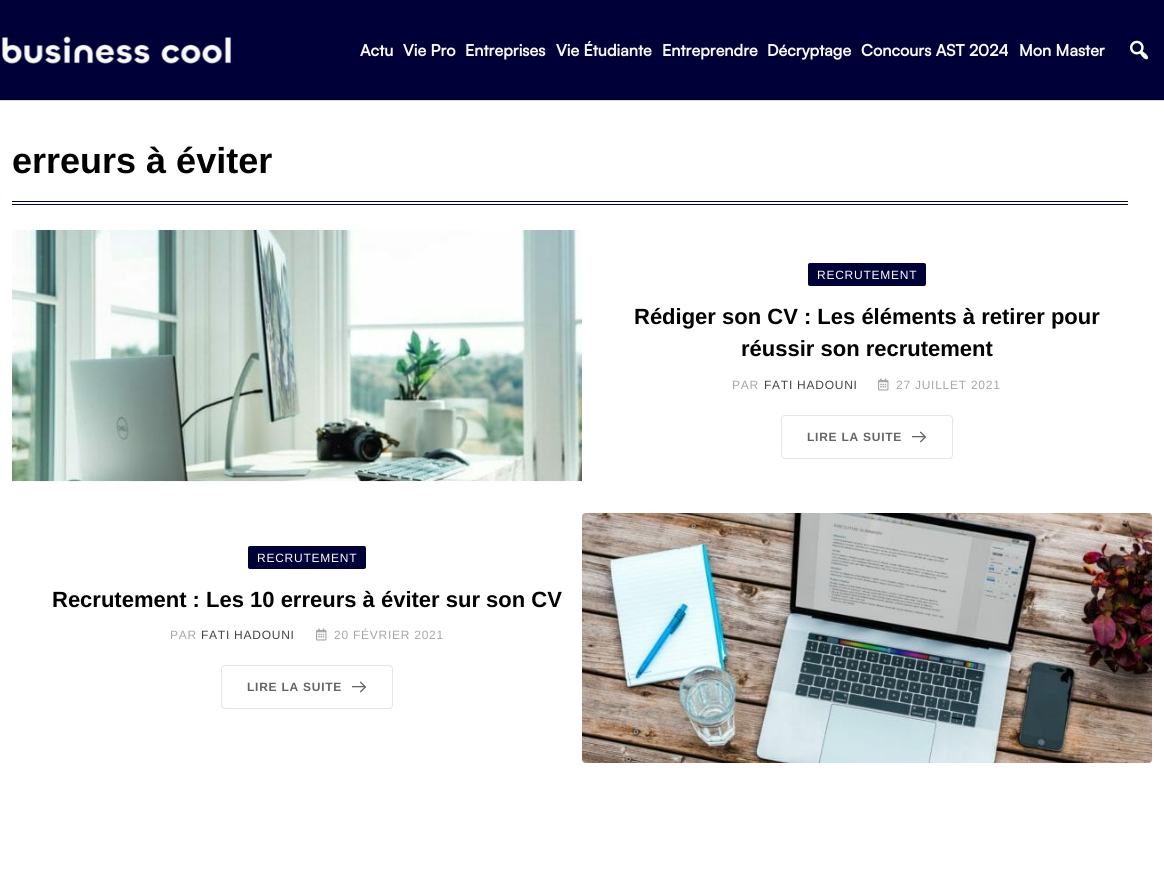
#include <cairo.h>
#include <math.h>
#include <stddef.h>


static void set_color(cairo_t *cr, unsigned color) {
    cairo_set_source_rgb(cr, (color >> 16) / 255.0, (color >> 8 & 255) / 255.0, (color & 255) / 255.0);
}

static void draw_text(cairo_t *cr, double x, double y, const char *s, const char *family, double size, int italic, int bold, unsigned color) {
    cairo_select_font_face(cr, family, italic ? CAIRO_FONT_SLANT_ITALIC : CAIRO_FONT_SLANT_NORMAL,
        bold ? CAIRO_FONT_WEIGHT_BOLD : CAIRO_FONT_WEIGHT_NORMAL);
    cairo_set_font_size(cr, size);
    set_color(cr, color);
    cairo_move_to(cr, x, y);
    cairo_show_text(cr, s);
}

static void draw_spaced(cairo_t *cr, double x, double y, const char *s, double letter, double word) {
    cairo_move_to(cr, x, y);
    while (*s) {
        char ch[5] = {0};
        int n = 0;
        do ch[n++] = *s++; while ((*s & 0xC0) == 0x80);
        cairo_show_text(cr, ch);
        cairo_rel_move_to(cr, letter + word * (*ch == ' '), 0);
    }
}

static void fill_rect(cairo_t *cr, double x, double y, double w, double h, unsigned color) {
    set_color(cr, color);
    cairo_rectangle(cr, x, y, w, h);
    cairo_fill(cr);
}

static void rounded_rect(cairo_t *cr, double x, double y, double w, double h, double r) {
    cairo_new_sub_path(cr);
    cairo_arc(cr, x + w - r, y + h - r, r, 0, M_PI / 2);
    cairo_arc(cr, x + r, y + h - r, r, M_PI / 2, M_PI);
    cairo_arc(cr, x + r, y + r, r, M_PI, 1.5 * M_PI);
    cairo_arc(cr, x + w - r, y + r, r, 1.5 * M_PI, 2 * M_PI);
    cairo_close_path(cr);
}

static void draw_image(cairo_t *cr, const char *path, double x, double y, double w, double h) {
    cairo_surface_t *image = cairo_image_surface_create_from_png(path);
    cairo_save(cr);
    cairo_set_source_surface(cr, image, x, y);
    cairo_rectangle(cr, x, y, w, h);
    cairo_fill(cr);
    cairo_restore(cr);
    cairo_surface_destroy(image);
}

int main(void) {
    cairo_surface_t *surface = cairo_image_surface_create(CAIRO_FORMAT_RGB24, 1164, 873);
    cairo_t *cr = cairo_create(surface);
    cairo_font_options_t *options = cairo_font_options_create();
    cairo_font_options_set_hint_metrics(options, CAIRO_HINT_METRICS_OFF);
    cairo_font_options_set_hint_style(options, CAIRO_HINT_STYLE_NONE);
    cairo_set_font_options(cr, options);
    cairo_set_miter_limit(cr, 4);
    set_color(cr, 0xFFFFFF);
    cairo_paint(cr);
    fill_rect(cr, 0, 0, 1164, 100, 0x000038);
    fill_rect(cr, 0, 100, 1164, 1, 0xD6D6D6);
    draw_image(cr, "assets/img1.png", 1, 36, 231, 28);
    draw_text(cr, 360, 56, "Actu", "Satoshi", 16, 0, 1, 0xF9F9F9);
    draw_text(cr, 403, 56, "Vie Pro", "Satoshi", 16, 0, 1, 0xF9F9F9);
    draw_text(cr, 465, 56, "Entreprises", "Satoshi", 16, 0, 1, 0xF9F9F9);
    draw_text(cr, 556, 56, "Vie Étudiante", "Satoshi", 16, 0, 1, 0xF9F9F9);
    draw_text(cr, 662, 56, "Entreprendre", "Satoshi", 16, 0, 1, 0xF9F9F9);
    draw_text(cr, 767, 56, "Décryptage", "Satoshi", 16, 0, 1, 0xF9F9F9);
    draw_text(cr, 861, 56, "Concours AST 2024", "Satoshi", 16, 0, 1, 0xF9F9F9);
    draw_text(cr, 1019, 56, "Mon Master", "Satoshi", 16, 0, 1, 0xF9F9F9);
    draw_image(cr, "assets/img2.png", 1130, 40, 18, 20);
    draw_text(cr, 12, 173, "erreurs à éviter", "Liberation Sans", 36, 0, 1, 0x000000);
    fill_rect(cr, 12, 201, 1116, 1, 0x000038);
    fill_rect(cr, 12, 204, 1116, 1, 0x000038);
    draw_image(cr, "assets/img3.png", 12, 230, 570, 252);
    rounded_rect(cr, 808, 263, 118, 23, 2);
    cairo_fill(cr);
    cairo_select_font_face(cr, "Liberation Sans", CAIRO_FONT_SLANT_NORMAL, CAIRO_FONT_WEIGHT_NORMAL);
    cairo_set_font_size(cr, 12);
    set_color(cr, 0xFFFFFF);
    draw_spaced(cr, 817, 279, "RECRUTEMENT", 0.75, 0);
    draw_text(cr, 634, 324, "Rédiger son CV : Les éléments à retirer pour", "Liberation Sans", 22, 0, 1, 0x000000);
    draw_text(cr, 741, 356, "réussir son recrutement", "Liberation Sans", 22, 0, 1, 0x000000);
    cairo_select_font_face(cr, "Liberation Sans", CAIRO_FONT_SLANT_NORMAL, CAIRO_FONT_WEIGHT_NORMAL);
    cairo_set_font_size(cr, 12);
    set_color(cr, 0xA5A6AA);
    draw_spaced(cr, 732, 389, "PAR", 0.75, 0);
    set_color(cr, 0x444444);
    draw_spaced(cr, 764, 389, "FATI HADOUNI", 0.75, 0);
    draw_image(cr, "assets/img4.png", 878, 378, 11, 13);
    set_color(cr, 0xA5A6AA);
    draw_spaced(cr, 896, 389, "27 JUILLET 2021", 0.75, 0);
    rounded_rect(cr, 781.5, 415.5, 171, 43, 3.5);
    set_color(cr, 0xE5E5E5);
    cairo_set_line_width(cr, 1);
    cairo_stroke(cr);
    cairo_select_font_face(cr, "Liberation Sans", CAIRO_FONT_SLANT_NORMAL, CAIRO_FONT_WEIGHT_BOLD);
    set_color(cr, 0x646464);
    draw_spaced(cr, 807, 441, "LIRE LA SUITE", 0.75, 0);
    draw_image(cr, "assets/img5.png", 912, 431, 14, 12);
    set_color(cr, 0x000038);
    rounded_rect(cr, 248, 546, 118, 23, 2);
    cairo_fill(cr);
    cairo_select_font_face(cr, "Liberation Sans", CAIRO_FONT_SLANT_NORMAL, CAIRO_FONT_WEIGHT_NORMAL);
    set_color(cr, 0xFFFFFF);
    draw_spaced(cr, 257, 562, "RECRUTEMENT", 0.75, 0);
    draw_text(cr, 52, 607, "Recrutement : Les 10 erreurs à éviter sur son CV", "Liberation Sans", 22, 0, 1, 0x000000);
    cairo_select_font_face(cr, "Liberation Sans", CAIRO_FONT_SLANT_NORMAL, CAIRO_FONT_WEIGHT_NORMAL);
    cairo_set_font_size(cr, 12);
    set_color(cr, 0xA5A6AA);
    draw_spaced(cr, 170, 639, "PAR", 0.75, 0);
    set_color(cr, 0x444444);
    draw_spaced(cr, 201, 639, "FATI HADOUNI", 0.75, 0);
    draw_image(cr, "assets/img4.png", 316, 628, 11, 13);
    set_color(cr, 0xA5A6AA);
    draw_spaced(cr, 334, 639, "20 FÉVRIER 2021", 0.75, 0);
    rounded_rect(cr, 221.5, 665.5, 171, 43, 3.5);
    set_color(cr, 0xE5E5E5);
    cairo_stroke(cr);
    cairo_select_font_face(cr, "Liberation Sans", CAIRO_FONT_SLANT_NORMAL, CAIRO_FONT_WEIGHT_BOLD);
    set_color(cr, 0x646464);
    draw_spaced(cr, 247, 691, "LIRE LA SUITE", 0.75, 0);
    draw_image(cr, "assets/img5.png", 352, 681, 14, 12);
    draw_image(cr, "assets/img6.png", 582, 513, 570, 250);
    cairo_surface_write_to_png(surface, "output.png");
    cairo_font_options_destroy(options);
    cairo_destroy(cr);
    cairo_surface_destroy(surface);
    return 0;
}
